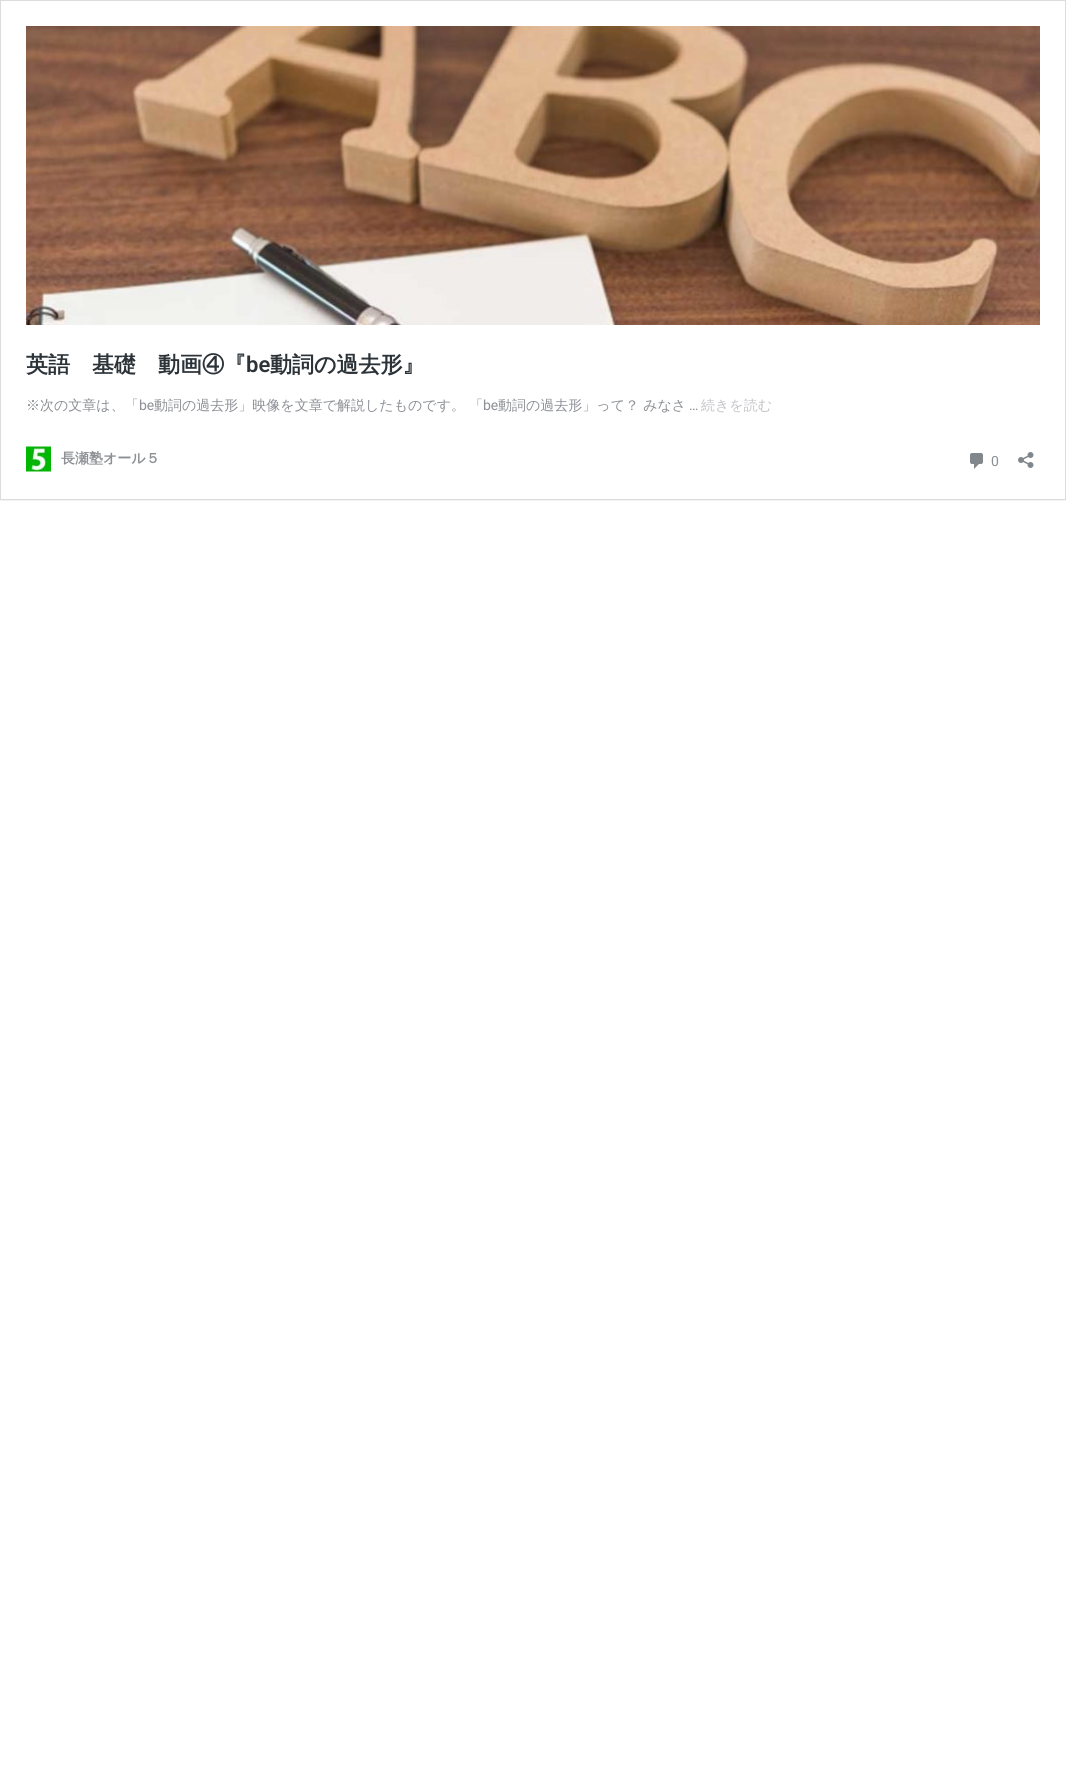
#include <cairo.h>
#include <math.h>
#include <stddef.h>


static void set_color(cairo_t *cr, unsigned color) {
    cairo_set_source_rgb(cr, (color >> 16) / 255.0, (color >> 8 & 255) / 255.0, (color & 255) / 255.0);
}

static void draw_text(cairo_t *cr, double x, double y, const char *s, const char *family, double size, int italic, int bold, unsigned color) {
    cairo_select_font_face(cr, family, italic ? CAIRO_FONT_SLANT_ITALIC : CAIRO_FONT_SLANT_NORMAL,
        bold ? CAIRO_FONT_WEIGHT_BOLD : CAIRO_FONT_WEIGHT_NORMAL);
    cairo_set_font_size(cr, size);
    set_color(cr, color);
    cairo_move_to(cr, x, y);
    cairo_show_text(cr, s);
}

static void rounded_rect(cairo_t *cr, double x, double y, double w, double h, double r) {
    cairo_new_sub_path(cr);
    cairo_arc(cr, x + w - r, y + h - r, r, 0, M_PI / 2);
    cairo_arc(cr, x + r, y + h - r, r, M_PI / 2, M_PI);
    cairo_arc(cr, x + r, y + r, r, M_PI, 1.5 * M_PI);
    cairo_arc(cr, x + w - r, y + r, r, 1.5 * M_PI, 2 * M_PI);
    cairo_close_path(cr);
}

static void draw_shadow(cairo_t *cr, double x, double y, double w, double h, double r, double blur, double alpha) {
    cairo_push_group_with_content(cr, CAIRO_CONTENT_ALPHA);
    cairo_set_operator(cr, CAIRO_OPERATOR_SOURCE);
    for (int i = 15; i >= -15 && fmin(w, h) + blur * i / 3 > 0; i -= 2) {
        double e = blur * i / 6;
        cairo_set_source_rgba(cr, 0, 0, 0, alpha * erfc((i - 1) / 8.5) / 2);
        rounded_rect(cr, x - e, y - e, w + 2 * e, h + 2 * e, fmax(0, fmin(r + e + blur * .6, fmin(w, h) / 2 + e)));
        cairo_fill(cr);
    }
    cairo_pattern_t *soft = cairo_pop_group(cr);
    cairo_mask(cr, soft);
    cairo_pattern_destroy(soft);
}

static void draw_image(cairo_t *cr, const char *path, double x, double y, double w, double h) {
    cairo_surface_t *image = cairo_image_surface_create_from_png(path);
    cairo_save(cr);
    cairo_set_source_surface(cr, image, x, y);
    cairo_rectangle(cr, x, y, w, h);
    cairo_fill(cr);
    cairo_restore(cr);
    cairo_surface_destroy(image);
}

int main(void) {
    cairo_surface_t *surface = cairo_image_surface_create(CAIRO_FORMAT_RGB24, 1066, 1765);
    cairo_t *cr = cairo_create(surface);
    cairo_font_options_t *options = cairo_font_options_create();
    cairo_font_options_set_hint_metrics(options, CAIRO_HINT_METRICS_OFF);
    cairo_font_options_set_hint_style(options, CAIRO_HINT_STYLE_NONE);
    cairo_set_font_options(cr, options);
    cairo_set_miter_limit(cr, 4);
    set_color(cr, 0xFFFFFF);
    cairo_paint(cr);
    cairo_save(cr);
    cairo_rectangle(cr, 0, 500, 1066, 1);
    cairo_clip(cr);
    set_color(cr, 0x000000);
    draw_shadow(cr, 0, 1, 1066, 500, 0, 0.5, 0.05);
    cairo_restore(cr);
    cairo_rectangle(cr, 0.5, 0.5, 1065, 499);
    set_color(cr, 0xDCDCDE);
    cairo_set_line_width(cr, 1);
    cairo_stroke(cr);
    draw_image(cr, "assets/img1.png", 26, 26, 1014, 299);
    draw_text(cr, 26, 372, "英語　基礎　動画④『", "WenQuanYi Zen Hei", 22, 0, 1, 0x2C3338);
    draw_text(cr, 246, 372, "be", "Roboto SemiBold", 22, 0, 0, 0x2C3338);
    draw_text(cr, 270, 372, "動詞の過去形』", "WenQuanYi Zen Hei", 22, 0, 1, 0x2C3338);
    draw_text(cr, 26, 410, "※次の文章は、「", "WenQuanYi Zen Hei Medium", 14, 0, 0, 0x8C8F94);
    draw_text(cr, 139, 410, "be", "Roboto", 14, 0, 0, 0x8C8F94);
    draw_text(cr, 154, 410, "動詞の過去形」映像を文章で解説したものです。 「", "WenQuanYi Zen Hei Medium", 14, 0, 0, 0x8C8F94);
    draw_text(cr, 483, 410, "be", "Roboto", 14, 0, 0, 0x8C8F94);
    draw_text(cr, 498, 410, "動詞の過去形」って？ みなさ", "WenQuanYi Zen Hei Medium", 14, 0, 0, 0x8C8F94);
    draw_text(cr, 689, 410, "…", "Roboto", 14, 0, 0, 0x8C8F94);
    draw_text(cr, 701, 410, "続きを読む", "WenQuanYi Zen Hei Medium", 14, 0, 0, 0xC3C4C7);
    draw_image(cr, "assets/img2.png", 26, 446, 25, 26);
    draw_text(cr, 61, 463, "長瀬塾オール５", "WenQuanYi Zen Hei", 14, 0, 1, 0x8C8F94);
    draw_image(cr, "assets/img3.png", 970, 453, 13, 16);
    draw_text(cr, 991, 466, "0", "Roboto", 14, 0, 0, 0x8C8F94);
    draw_image(cr, "assets/img4.png", 1018, 452, 16, 16);
    cairo_surface_write_to_png(surface, "output.png");
    cairo_font_options_destroy(options);
    cairo_destroy(cr);
    cairo_surface_destroy(surface);
    return 0;
}
